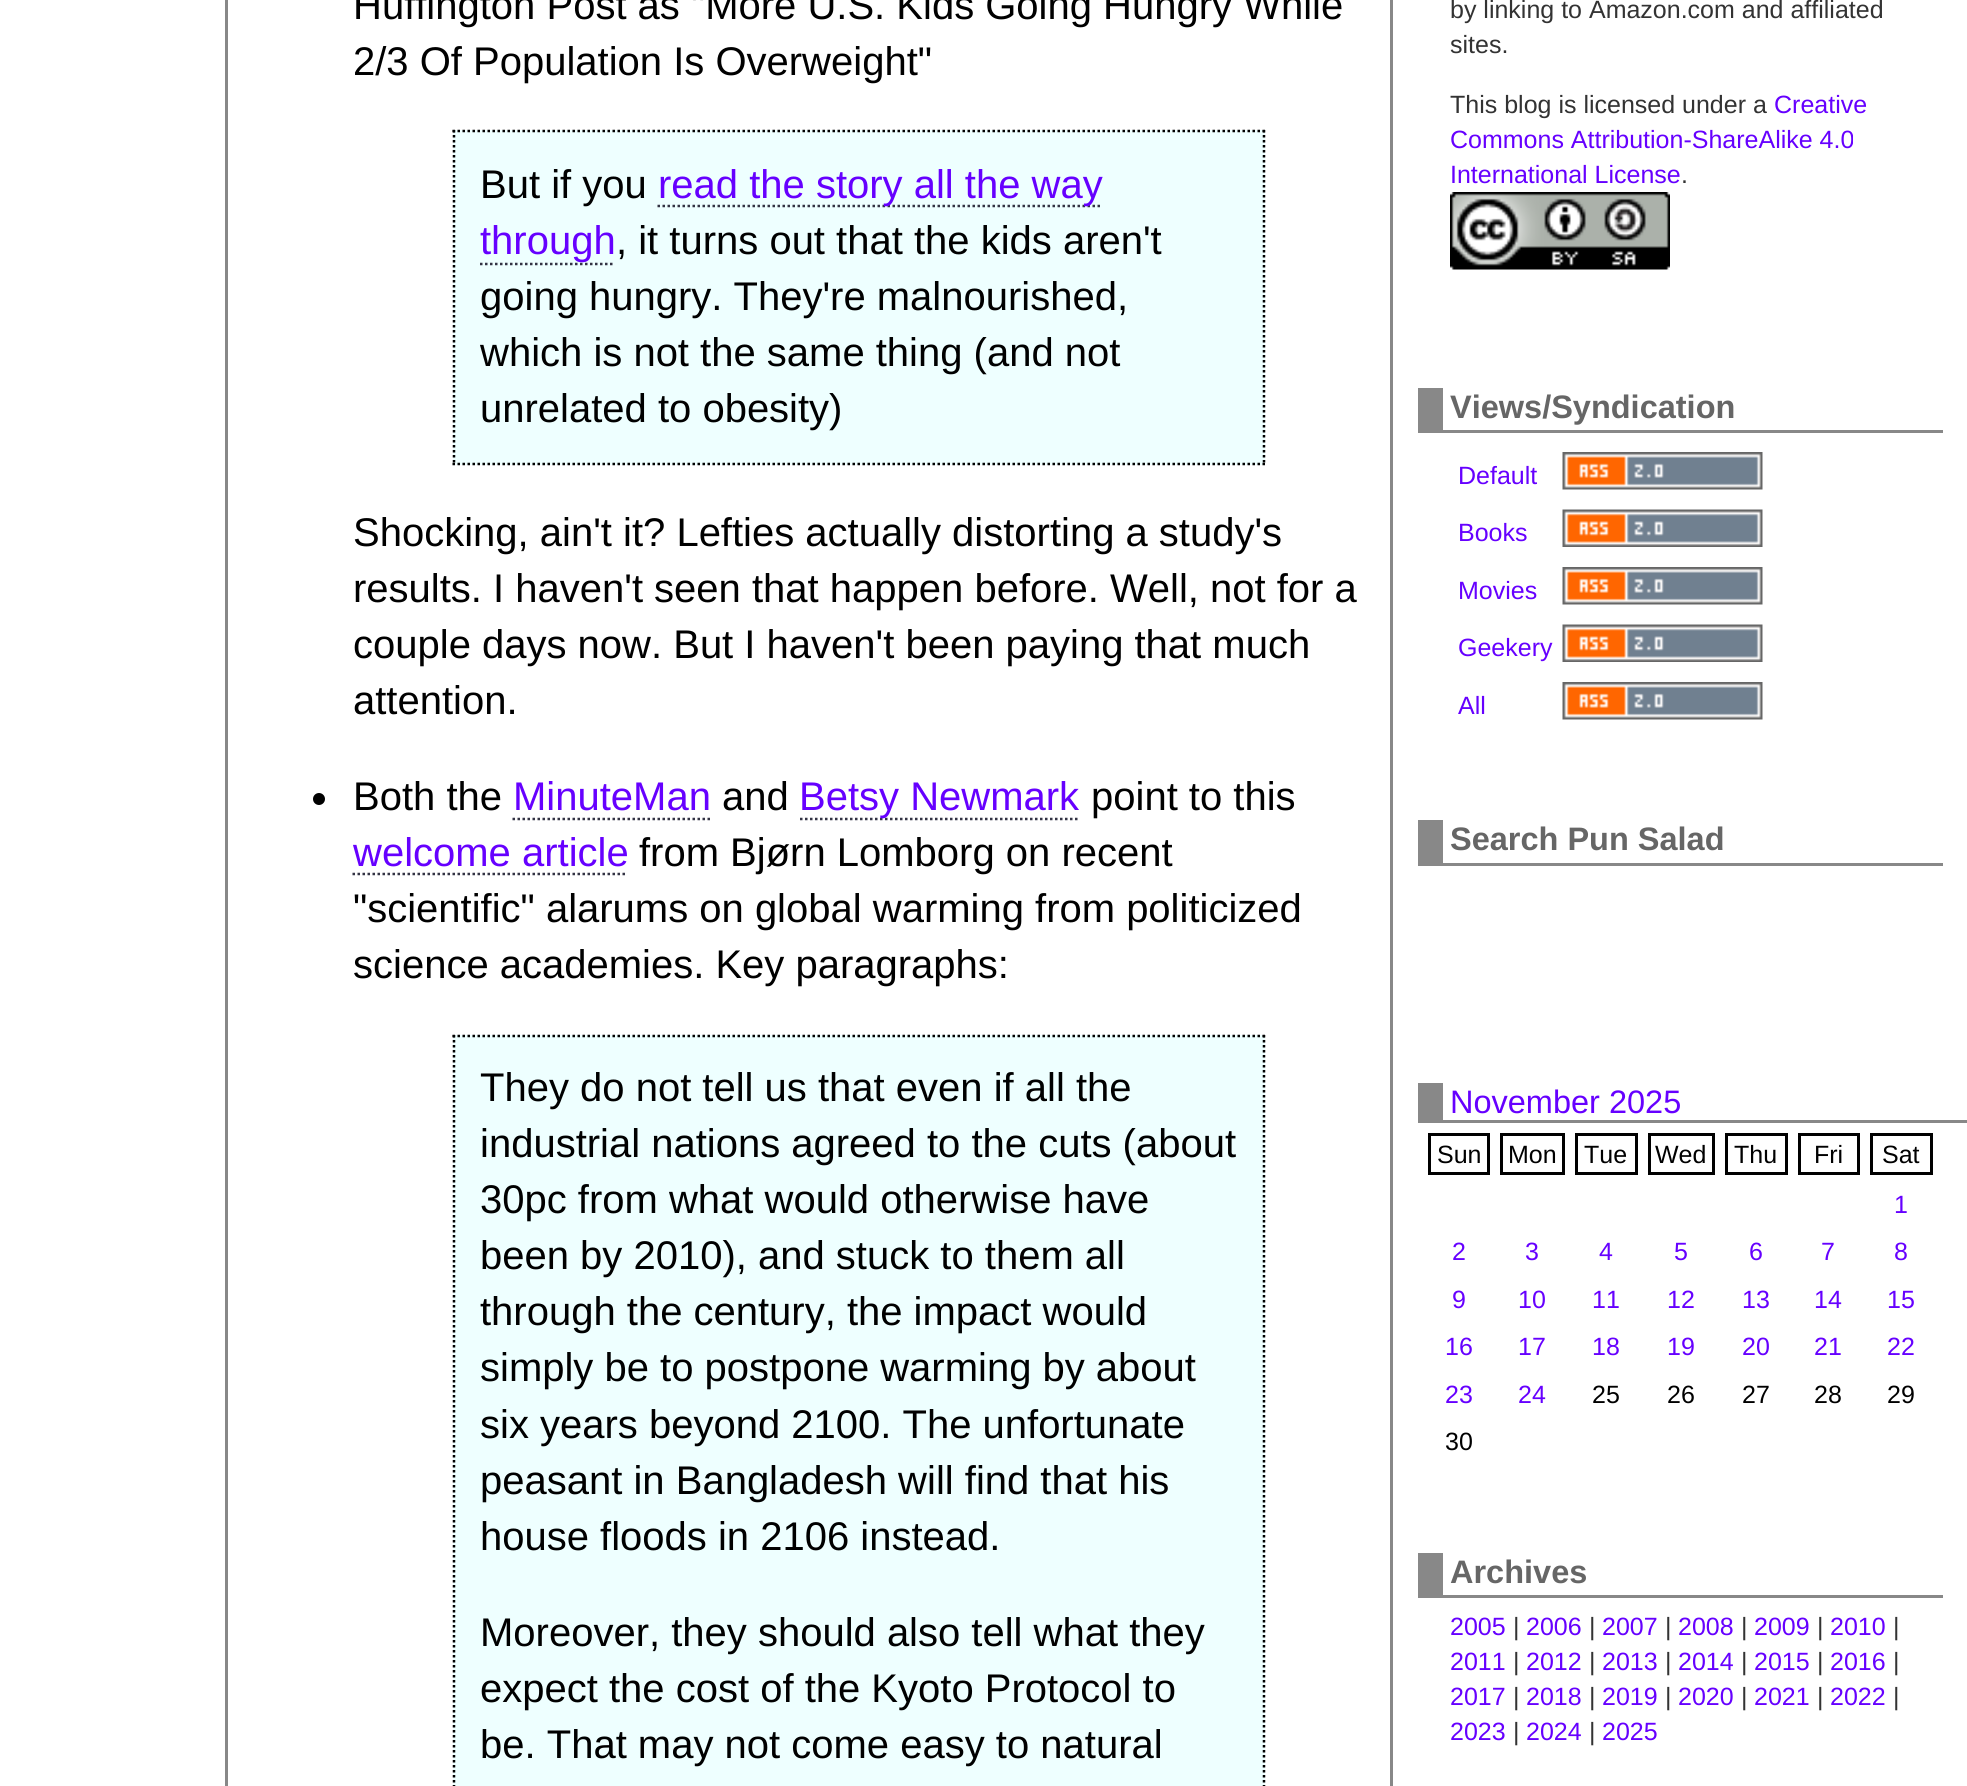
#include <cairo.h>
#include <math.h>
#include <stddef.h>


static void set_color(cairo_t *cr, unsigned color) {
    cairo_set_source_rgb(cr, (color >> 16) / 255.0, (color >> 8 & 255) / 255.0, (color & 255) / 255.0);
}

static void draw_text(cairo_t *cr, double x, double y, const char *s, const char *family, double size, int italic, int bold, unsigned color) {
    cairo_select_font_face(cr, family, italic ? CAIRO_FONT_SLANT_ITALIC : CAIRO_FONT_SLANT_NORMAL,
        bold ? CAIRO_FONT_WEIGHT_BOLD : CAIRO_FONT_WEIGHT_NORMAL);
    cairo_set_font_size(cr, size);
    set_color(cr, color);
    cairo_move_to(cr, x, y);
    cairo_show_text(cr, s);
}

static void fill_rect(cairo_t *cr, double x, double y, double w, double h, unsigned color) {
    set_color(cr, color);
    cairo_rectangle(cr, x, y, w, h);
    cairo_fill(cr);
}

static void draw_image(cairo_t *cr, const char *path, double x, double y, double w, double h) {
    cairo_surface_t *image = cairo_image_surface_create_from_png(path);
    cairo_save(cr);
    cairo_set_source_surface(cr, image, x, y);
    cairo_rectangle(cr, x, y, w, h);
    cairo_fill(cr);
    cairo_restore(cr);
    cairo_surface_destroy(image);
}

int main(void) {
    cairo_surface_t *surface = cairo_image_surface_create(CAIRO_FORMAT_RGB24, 1967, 1786);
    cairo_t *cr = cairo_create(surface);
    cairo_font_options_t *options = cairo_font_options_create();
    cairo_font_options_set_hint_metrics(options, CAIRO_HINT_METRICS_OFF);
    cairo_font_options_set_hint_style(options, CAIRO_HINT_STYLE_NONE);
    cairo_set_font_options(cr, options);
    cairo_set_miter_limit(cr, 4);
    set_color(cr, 0xFFFFFF);
    cairo_paint(cr);
    fill_rect(cr, 225, 0, 3, 1786, 0x888888);
    draw_text(cr, 353, 19, "Huffington Post as \"More U.S. Kids Going Hungry While", "Liberation Sans", 40, 0, 0, 0x000000);
    draw_text(cr, 353, 75, "2/3 Of Population Is Overweight\"", "Liberation Sans", 40, 0, 0, 0x000000);
    fill_rect(cr, 453, 130, 812, 335, 0xEEFFFF);
    cairo_new_path(cr);
    cairo_move_to(cr, 452.5, 131);
    cairo_line_to(cr, 1265, 131);
    set_color(cr, 0x000000);
    cairo_set_line_width(cr, 2.5);
    cairo_set_dash(cr, (double[]){2.5, 2.5}, 2, 0);
    cairo_stroke(cr);
    cairo_new_path(cr);
    cairo_move_to(cr, 1264, 130);
    cairo_line_to(cr, 1264, 465);
    cairo_stroke(cr);
    cairo_new_path(cr);
    cairo_move_to(cr, 452.5, 464);
    cairo_line_to(cr, 1265, 464);
    cairo_stroke(cr);
    cairo_new_path(cr);
    cairo_move_to(cr, 454, 130);
    cairo_line_to(cr, 454, 465);
    cairo_stroke(cr);
    draw_text(cr, 480, 198, "But if you", "Liberation Sans", 40, 0, 0, 0x000000);
    cairo_new_path(cr);
    cairo_move_to(cr, 657.5, 206);
    cairo_line_to(cr, 1102.5, 206);
    set_color(cr, 0x333344);
    cairo_stroke(cr);
    draw_text(cr, 658, 198, "read the story all the way", "Liberation Sans", 40, 0, 0, 0x6600FF);
    cairo_new_path(cr);
    cairo_move_to(cr, 480, 264);
    cairo_line_to(cr, 615, 264);
    set_color(cr, 0x333344);
    cairo_stroke(cr);
    draw_text(cr, 480, 254, "through", "Liberation Sans", 40, 0, 0, 0x6600FF);
    draw_text(cr, 616, 254, ", it turns out that the kids aren't", "Liberation Sans", 40, 0, 0, 0x000000);
    draw_text(cr, 480, 310, "going hungry. They're malnourished,", "Liberation Sans", 40, 0, 0, 0x000000);
    draw_text(cr, 480, 366, "which is not the same thing (and not", "Liberation Sans", 40, 0, 0, 0x000000);
    draw_text(cr, 480, 422, "unrelated to obesity)", "Liberation Sans", 40, 0, 0, 0x000000);
    draw_text(cr, 353, 546, "Shocking, ain't it? Lefties actually distorting a study's", "Liberation Sans", 40, 0, 0, 0x000000);
    draw_text(cr, 353, 602, "results. I haven't seen that happen before. Well, not for a", "Liberation Sans", 40, 0, 0, 0x000000);
    draw_text(cr, 353, 658, "couple days now. But I haven't been paying that much", "Liberation Sans", 40, 0, 0, 0x000000);
    draw_text(cr, 353, 714, "attention.", "Liberation Sans", 40, 0, 0, 0x000000);
    cairo_new_path(cr);
    cairo_arc(cr, 319, 799, 6, 0, 2 * M_PI);
    cairo_fill(cr);
    draw_text(cr, 353, 810, "Both the", "Liberation Sans", 40, 0, 0, 0x000000);
    draw_text(cr, 513, 810, "MinuteMan", "Liberation Sans", 40, 0, 0, 0x6600FF);
    cairo_new_path(cr);
    cairo_move_to(cr, 512.5, 819);
    cairo_line_to(cr, 710, 819);
    set_color(cr, 0x333344);
    cairo_stroke(cr);
    draw_text(cr, 722, 810, "and", "Liberation Sans", 40, 0, 0, 0x000000);
    cairo_new_path(cr);
    cairo_move_to(cr, 800, 819);
    cairo_line_to(cr, 1080, 819);
    set_color(cr, 0x333344);
    cairo_stroke(cr);
    draw_text(cr, 799, 810, "Betsy Newmark", "Liberation Sans", 40, 0, 0, 0x6600FF);
    draw_text(cr, 1091, 810, "point to this", "Liberation Sans", 40, 0, 0, 0x000000);
    draw_text(cr, 353, 866, "welcome article", "Liberation Sans", 40, 0, 0, 0x6600FF);
    cairo_new_path(cr);
    cairo_move_to(cr, 352.5, 874);
    cairo_line_to(cr, 627.5, 874);
    set_color(cr, 0x333344);
    cairo_stroke(cr);
    draw_text(cr, 639, 866, "from Bjørn Lomborg on recent", "Liberation Sans", 40, 0, 0, 0x000000);
    draw_text(cr, 353, 922, "\"scientific\" alarums on global warming from politicized", "Liberation Sans", 40, 0, 0, 0x000000);
    draw_text(cr, 353, 978, "science academies. Key paragraphs:", "Liberation Sans", 40, 0, 0, 0x000000);
    fill_rect(cr, 453, 1035, 812, 751, 0xEEFFFF);
    cairo_new_path(cr);
    cairo_move_to(cr, 452.5, 1036);
    cairo_line_to(cr, 1265, 1036);
    set_color(cr, 0x000000);
    cairo_stroke(cr);
    cairo_new_path(cr);
    cairo_move_to(cr, 1264, 1035);
    cairo_line_to(cr, 1264, 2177.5);
    cairo_stroke(cr);
    cairo_new_path(cr);
    cairo_move_to(cr, 454, 1035);
    cairo_line_to(cr, 454, 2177.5);
    cairo_stroke(cr);
    draw_text(cr, 480, 1101, "They do not tell us that even if all the", "Liberation Sans", 40, 0, 0, 0x000000);
    draw_text(cr, 480, 1157, "industrial nations agreed to the cuts (about", "Liberation Sans", 40, 0, 0, 0x000000);
    draw_text(cr, 480, 1213, "30pc from what would otherwise have", "Liberation Sans", 40, 0, 0, 0x000000);
    draw_text(cr, 480, 1269, "been by 2010), and stuck to them all", "Liberation Sans", 40, 0, 0, 0x000000);
    draw_text(cr, 480, 1325, "through the century, the impact would", "Liberation Sans", 40, 0, 0, 0x000000);
    draw_text(cr, 480, 1381, "simply be to postpone warming by about", "Liberation Sans", 40, 0, 0, 0x000000);
    draw_text(cr, 480, 1438, "six years beyond 2100. The unfortunate", "Liberation Sans", 40, 0, 0, 0x000000);
    draw_text(cr, 480, 1494, "peasant in Bangladesh will find that his", "Liberation Sans", 40, 0, 0, 0x000000);
    draw_text(cr, 480, 1550, "house floods in 2106 instead.", "Liberation Sans", 40, 0, 0, 0x000000);
    draw_text(cr, 480, 1646, "Moreover, they should also tell what they", "Liberation Sans", 40, 0, 0, 0x000000);
    draw_text(cr, 480, 1702, "expect the cost of the Kyoto Protocol to", "Liberation Sans", 40, 0, 0, 0x000000);
    draw_text(cr, 480, 1758, "be. That may not come easy to natural", "Liberation Sans", 40, 0, 0, 0x000000);
    fill_rect(cr, 1390, 0, 3, 1786, 0x888888);
    draw_text(cr, 1450, 18, "by linking to Amazon.com and affiliated", "Liberation Sans", 25, 0, 0, 0x333333);
    draw_text(cr, 1450, 53, "sites.", "Liberation Sans", 25, 0, 0, 0x333333);
    draw_text(cr, 1450, 113, "This blog is licensed under a", "Liberation Sans", 25, 0, 0, 0x333333);
    draw_text(cr, 1774, 113, "Creative", "Liberation Sans", 25, 0, 0, 0x6600FF);
    draw_text(cr, 1450, 148, "Commons Attribution-ShareAlike 4.0", "Liberation Sans", 25, 0, 0, 0x6600FF);
    draw_text(cr, 1450, 183, "International License", "Liberation Sans", 25, 0, 0, 0x6600FF);
    draw_text(cr, 1681, 183, ".", "Liberation Sans", 25, 0, 0, 0x333333);
    draw_image(cr, "assets/img1.png", 1450, 192, 220, 78);
    fill_rect(cr, 1443, 430, 500, 3, 0x888888);
    fill_rect(cr, 1418, 388, 25, 45, 0x888888);
    draw_text(cr, 1450, 418, "Views/Syndication", "Liberation Sans", 32.5, 0, 1, 0x666666);
    draw_text(cr, 1458, 484, "Default", "Liberation Sans", 25, 0, 0, 0x6600FF);
    draw_image(cr, "assets/img2.png", 1562, 452, 201, 38);
    draw_text(cr, 1458, 541, "Books", "Liberation Sans", 25, 0, 0, 0x6600FF);
    draw_image(cr, "assets/img3.png", 1562, 509, 201, 38);
    draw_text(cr, 1458, 599, "Movies", "Liberation Sans", 25, 0, 0, 0x6600FF);
    draw_image(cr, "assets/img4.png", 1562, 567, 201, 38);
    draw_text(cr, 1458, 656, "Geekery", "Liberation Sans", 25, 0, 0, 0x6600FF);
    draw_image(cr, "assets/img3.png", 1562, 624, 201, 38);
    draw_text(cr, 1458, 714, "All", "Liberation Sans", 25, 0, 0, 0x6600FF);
    draw_image(cr, "assets/img4.png", 1562, 682, 201, 38);
    fill_rect(cr, 1418, 863, 525, 3, 0x888888);
    fill_rect(cr, 1418, 820, 25, 43, 0x888888);
    draw_text(cr, 1450, 850, "Search Pun Salad", "Liberation Sans", 32.5, 0, 1, 0x666666);
    fill_rect(cr, 1443, 1120, 524, 3, 0x888888);
    fill_rect(cr, 1418, 1083, 25, 40, 0x888888);
    draw_text(cr, 1450, 1113, "November 2025", "Liberation Sans", 32.5, 0, 0, 0x6600FF);
    cairo_rectangle(cr, 1429.5, 1134.5, 59, 39);
    set_color(cr, 0x000000);
    cairo_set_line_width(cr, 3);
    cairo_set_dash(cr, NULL, 0, 0);
    cairo_stroke(cr);
    draw_text(cr, 1437, 1163, "Sun", "Liberation Sans", 25, 0, 0, 0x000000);
    cairo_rectangle(cr, 1501.5, 1134.5, 62, 39);
    cairo_stroke(cr);
    draw_text(cr, 1508, 1163, "Mon", "Liberation Sans", 25, 0, 0, 0x000000);
    cairo_rectangle(cr, 1576.5, 1134.5, 60, 39);
    cairo_stroke(cr);
    draw_text(cr, 1584, 1163, "Tue", "Liberation Sans", 25, 0, 0, 0x000000);
    cairo_rectangle(cr, 1649.5, 1134.5, 64, 39);
    cairo_stroke(cr);
    draw_text(cr, 1655, 1163, "Wed", "Liberation Sans", 25, 0, 0, 0x000000);
    cairo_rectangle(cr, 1726.5, 1134.5, 60, 39);
    cairo_stroke(cr);
    draw_text(cr, 1734, 1163, "Thu", "Liberation Sans", 25, 0, 0, 0x000000);
    cairo_rectangle(cr, 1799.5, 1134.5, 59, 39);
    cairo_stroke(cr);
    draw_text(cr, 1814, 1163, "Fri", "Liberation Sans", 25, 0, 0, 0x000000);
    cairo_rectangle(cr, 1871.5, 1134.5, 60, 39);
    cairo_stroke(cr);
    draw_text(cr, 1882, 1163, "Sat", "Liberation Sans", 25, 0, 0, 0x000000);
    draw_text(cr, 1894, 1213, "1", "Liberation Sans", 25, 0, 0, 0x6600FF);
    draw_text(cr, 1452, 1260, "2", "Liberation Sans", 25, 0, 0, 0x6600FF);
    draw_text(cr, 1525, 1260, "3", "Liberation Sans", 25, 0, 0, 0x6600FF);
    draw_text(cr, 1599, 1260, "4", "Liberation Sans", 25, 0, 0, 0x6600FF);
    draw_text(cr, 1674, 1260, "5", "Liberation Sans", 25, 0, 0, 0x6600FF);
    draw_text(cr, 1749, 1260, "6", "Liberation Sans", 25, 0, 0, 0x6600FF);
    draw_text(cr, 1821, 1260, "7", "Liberation Sans", 25, 0, 0, 0x6600FF);
    draw_text(cr, 1894, 1260, "8", "Liberation Sans", 25, 0, 0, 0x6600FF);
    draw_text(cr, 1452, 1308, "9", "Liberation Sans", 25, 0, 0, 0x6600FF);
    draw_text(cr, 1518, 1308, "10", "Liberation Sans", 25, 0, 0, 0x6600FF);
    draw_text(cr, 1592, 1308, "11", "Liberation Sans", 25, 0, 0, 0x6600FF);
    draw_text(cr, 1667, 1308, "12", "Liberation Sans", 25, 0, 0, 0x6600FF);
    draw_text(cr, 1742, 1308, "13", "Liberation Sans", 25, 0, 0, 0x6600FF);
    draw_text(cr, 1814, 1308, "14", "Liberation Sans", 25, 0, 0, 0x6600FF);
    draw_text(cr, 1887, 1308, "15", "Liberation Sans", 25, 0, 0, 0x6600FF);
    draw_text(cr, 1445, 1355, "16", "Liberation Sans", 25, 0, 0, 0x6600FF);
    draw_text(cr, 1518, 1355, "17", "Liberation Sans", 25, 0, 0, 0x6600FF);
    draw_text(cr, 1592, 1355, "18", "Liberation Sans", 25, 0, 0, 0x6600FF);
    draw_text(cr, 1667, 1355, "19", "Liberation Sans", 25, 0, 0, 0x6600FF);
    draw_text(cr, 1742, 1355, "20", "Liberation Sans", 25, 0, 0, 0x6600FF);
    draw_text(cr, 1814, 1355, "21", "Liberation Sans", 25, 0, 0, 0x6600FF);
    draw_text(cr, 1887, 1355, "22", "Liberation Sans", 25, 0, 0, 0x6600FF);
    draw_text(cr, 1445, 1403, "23", "Liberation Sans", 25, 0, 0, 0x6600FF);
    draw_text(cr, 1518, 1403, "24", "Liberation Sans", 25, 0, 0, 0x6600FF);
    draw_text(cr, 1592, 1403, "25", "Liberation Sans", 25, 0, 0, 0x000000);
    draw_text(cr, 1667, 1403, "26", "Liberation Sans", 25, 0, 0, 0x000000);
    draw_text(cr, 1742, 1403, "27", "Liberation Sans", 25, 0, 0, 0x000000);
    draw_text(cr, 1814, 1403, "28", "Liberation Sans", 25, 0, 0, 0x000000);
    draw_text(cr, 1887, 1403, "29", "Liberation Sans", 25, 0, 0, 0x000000);
    draw_text(cr, 1445, 1450, "30", "Liberation Sans", 25, 0, 0, 0x000000);
    fill_rect(cr, 1443, 1595, 500, 3, 0x888888);
    fill_rect(cr, 1418, 1553, 25, 45, 0x888888);
    draw_text(cr, 1450, 1583, "Archives", "Liberation Sans", 32.5, 0, 1, 0x666666);
    draw_text(cr, 1450, 1635, "2005", "Liberation Sans", 25, 0, 0, 0x6600FF);
    draw_text(cr, 1513, 1635, "|", "Liberation Sans", 25, 0, 0, 0x333333);
    draw_text(cr, 1526, 1635, "2006", "Liberation Sans", 25, 0, 0, 0x6600FF);
    draw_text(cr, 1589, 1635, "|", "Liberation Sans", 25, 0, 0, 0x333333);
    draw_text(cr, 1602, 1635, "2007", "Liberation Sans", 25, 0, 0, 0x6600FF);
    draw_text(cr, 1665, 1635, "|", "Liberation Sans", 25, 0, 0, 0x333333);
    draw_text(cr, 1678, 1635, "2008", "Liberation Sans", 25, 0, 0, 0x6600FF);
    draw_text(cr, 1741, 1635, "|", "Liberation Sans", 25, 0, 0, 0x333333);
    draw_text(cr, 1754, 1635, "2009", "Liberation Sans", 25, 0, 0, 0x6600FF);
    draw_text(cr, 1817, 1635, "|", "Liberation Sans", 25, 0, 0, 0x333333);
    draw_text(cr, 1830, 1635, "2010", "Liberation Sans", 25, 0, 0, 0x6600FF);
    draw_text(cr, 1893, 1635, "|", "Liberation Sans", 25, 0, 0, 0x333333);
    draw_text(cr, 1450, 1670, "2011", "Liberation Sans", 25, 0, 0, 0x6600FF);
    draw_text(cr, 1513, 1670, "|", "Liberation Sans", 25, 0, 0, 0x333333);
    draw_text(cr, 1526, 1670, "2012", "Liberation Sans", 25, 0, 0, 0x6600FF);
    draw_text(cr, 1589, 1670, "|", "Liberation Sans", 25, 0, 0, 0x333333);
    draw_text(cr, 1602, 1670, "2013", "Liberation Sans", 25, 0, 0, 0x6600FF);
    draw_text(cr, 1665, 1670, "|", "Liberation Sans", 25, 0, 0, 0x333333);
    draw_text(cr, 1678, 1670, "2014", "Liberation Sans", 25, 0, 0, 0x6600FF);
    draw_text(cr, 1741, 1670, "|", "Liberation Sans", 25, 0, 0, 0x333333);
    draw_text(cr, 1754, 1670, "2015", "Liberation Sans", 25, 0, 0, 0x6600FF);
    draw_text(cr, 1817, 1670, "|", "Liberation Sans", 25, 0, 0, 0x333333);
    draw_text(cr, 1830, 1670, "2016", "Liberation Sans", 25, 0, 0, 0x6600FF);
    draw_text(cr, 1893, 1670, "|", "Liberation Sans", 25, 0, 0, 0x333333);
    draw_text(cr, 1450, 1705, "2017", "Liberation Sans", 25, 0, 0, 0x6600FF);
    draw_text(cr, 1513, 1705, "|", "Liberation Sans", 25, 0, 0, 0x333333);
    draw_text(cr, 1526, 1705, "2018", "Liberation Sans", 25, 0, 0, 0x6600FF);
    draw_text(cr, 1589, 1705, "|", "Liberation Sans", 25, 0, 0, 0x333333);
    draw_text(cr, 1602, 1705, "2019", "Liberation Sans", 25, 0, 0, 0x6600FF);
    draw_text(cr, 1665, 1705, "|", "Liberation Sans", 25, 0, 0, 0x333333);
    draw_text(cr, 1678, 1705, "2020", "Liberation Sans", 25, 0, 0, 0x6600FF);
    draw_text(cr, 1741, 1705, "|", "Liberation Sans", 25, 0, 0, 0x333333);
    draw_text(cr, 1754, 1705, "2021", "Liberation Sans", 25, 0, 0, 0x6600FF);
    draw_text(cr, 1817, 1705, "|", "Liberation Sans", 25, 0, 0, 0x333333);
    draw_text(cr, 1830, 1705, "2022", "Liberation Sans", 25, 0, 0, 0x6600FF);
    draw_text(cr, 1893, 1705, "|", "Liberation Sans", 25, 0, 0, 0x333333);
    draw_text(cr, 1450, 1740, "2023", "Liberation Sans", 25, 0, 0, 0x6600FF);
    draw_text(cr, 1513, 1740, "|", "Liberation Sans", 25, 0, 0, 0x333333);
    draw_text(cr, 1526, 1740, "2024", "Liberation Sans", 25, 0, 0, 0x6600FF);
    draw_text(cr, 1589, 1740, "|", "Liberation Sans", 25, 0, 0, 0x333333);
    draw_text(cr, 1602, 1740, "2025", "Liberation Sans", 25, 0, 0, 0x6600FF);
    cairo_surface_write_to_png(surface, "output.png");
    cairo_font_options_destroy(options);
    cairo_destroy(cr);
    cairo_surface_destroy(surface);
    return 0;
}
